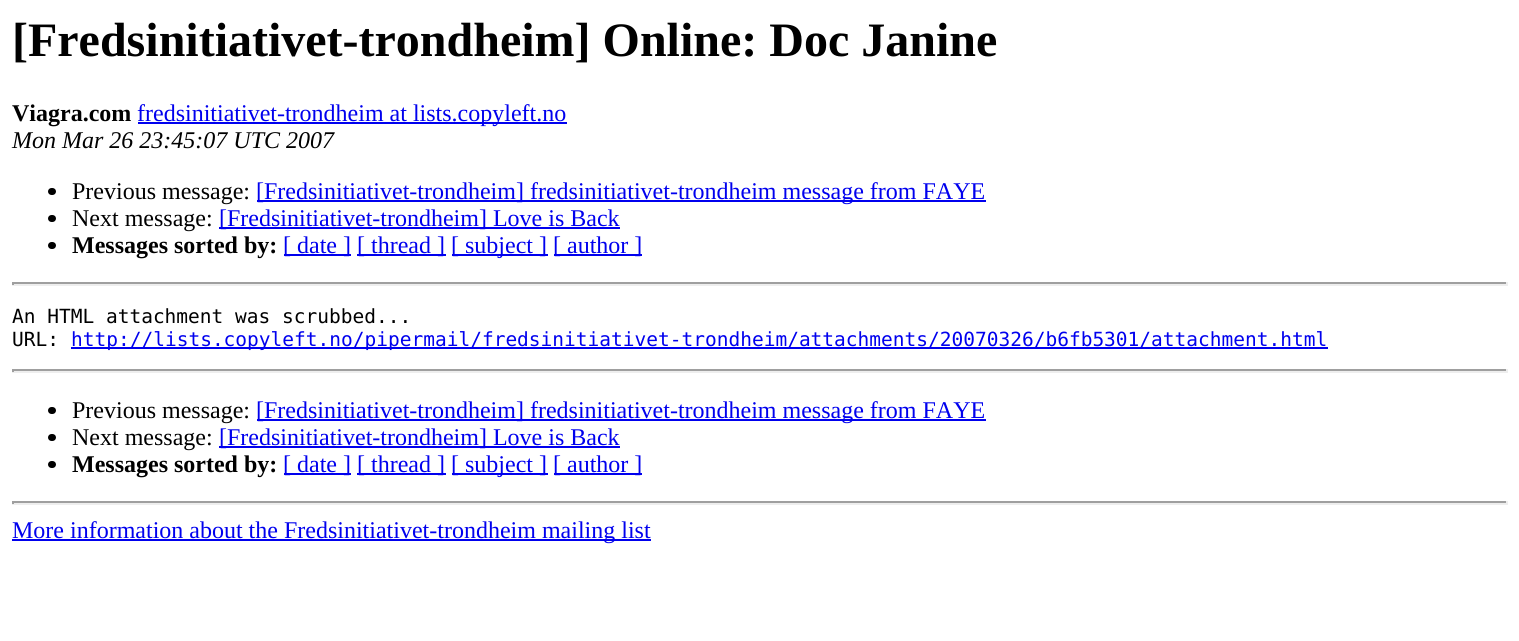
#include <cairo.h>
#include <math.h>
#include <stddef.h>


static void set_color(cairo_t *cr, unsigned color) {
    cairo_set_source_rgb(cr, (color >> 16) / 255.0, (color >> 8 & 255) / 255.0, (color & 255) / 255.0);
}

static void draw_text(cairo_t *cr, double x, double y, const char *s, const char *family, double size, int italic, int bold, unsigned color) {
    cairo_select_font_face(cr, family, italic ? CAIRO_FONT_SLANT_ITALIC : CAIRO_FONT_SLANT_NORMAL,
        bold ? CAIRO_FONT_WEIGHT_BOLD : CAIRO_FONT_WEIGHT_NORMAL);
    cairo_set_font_size(cr, size);
    set_color(cr, color);
    cairo_move_to(cr, x, y);
    cairo_show_text(cr, s);
}

static void fill_rect(cairo_t *cr, double x, double y, double w, double h, unsigned color) {
    set_color(cr, color);
    cairo_rectangle(cr, x, y, w, h);
    cairo_fill(cr);
}

static void rounded_rect(cairo_t *cr, double x, double y, double w, double h, double r) {
    cairo_new_sub_path(cr);
    cairo_arc(cr, x + w - r, y + h - r, r, 0, M_PI / 2);
    cairo_arc(cr, x + r, y + h - r, r, M_PI / 2, M_PI);
    cairo_arc(cr, x + r, y + r, r, M_PI, 1.5 * M_PI);
    cairo_arc(cr, x + w - r, y + r, r, 1.5 * M_PI, 2 * M_PI);
    cairo_close_path(cr);
}

int main(void) {
    cairo_surface_t *surface = cairo_image_surface_create(CAIRO_FORMAT_RGB24, 1519, 641);
    cairo_t *cr = cairo_create(surface);
    cairo_font_options_t *options = cairo_font_options_create();
    cairo_font_options_set_hint_metrics(options, CAIRO_HINT_METRICS_OFF);
    cairo_font_options_set_hint_style(options, CAIRO_HINT_STYLE_NONE);
    cairo_set_font_options(cr, options);
    cairo_set_miter_limit(cr, 4);
    set_color(cr, 0xFFFFFF);
    cairo_paint(cr);
    draw_text(cr, 12, 56, "[Fredsinitiativet-trondheim] Online: Doc Janine", "Liberation Serif", 48, 0, 1, 0x000000);
    draw_text(cr, 12, 121, "Viagra.com", "Liberation Serif", 24, 0, 1, 0x000000);
    fill_rect(cr, 138, 122, 429, 2, 0x0000EE);
    draw_text(cr, 137, 121, "fredsinitiativet-trondheim at lists.copyleft.no", "Liberation Serif", 24, 0, 0, 0x0000EE);
    draw_text(cr, 12, 148, "Mon Mar 26 23:45:07 UTC 2007", "Liberation Serif", 24, 1, 0, 0x000000);
    rounded_rect(cr, 48, 188, 8, 7, 3.5);
    cairo_fill(cr);
    draw_text(cr, 72, 199, "Previous message:", "Liberation Serif", 24, 0, 0, 0x000000);
    fill_rect(cr, 257, 200, 729, 2, 0x0000EE);
    draw_text(cr, 256, 199, "[Fredsinitiativet-trondheim] fredsinitiativet-trondheim message from FAYE", "Liberation Serif", 24, 0, 0, 0x0000EE);
    set_color(cr, 0x000000);
    rounded_rect(cr, 48, 215, 8, 7, 3.5);
    cairo_fill(cr);
    draw_text(cr, 72, 226, "Next message:", "Liberation Serif", 24, 0, 0, 0x000000);
    fill_rect(cr, 219, 227, 401, 2, 0x0000EE);
    draw_text(cr, 219, 226, "[Fredsinitiativet-trondheim] Love is Back", "Liberation Serif", 24, 0, 0, 0x0000EE);
    set_color(cr, 0x000000);
    rounded_rect(cr, 48, 242, 8, 7, 3.5);
    cairo_fill(cr);
    draw_text(cr, 72, 253, "Messages sorted by:", "Liberation Serif", 24, 0, 1, 0x000000);
    fill_rect(cr, 284, 254, 67, 2, 0x0000EE);
    draw_text(cr, 283, 253, "[ date ]", "Liberation Serif", 24, 0, 0, 0x0000EE);
    fill_rect(cr, 357, 254, 89, 2, 0x0000EE);
    draw_text(cr, 357, 253, "[ thread ]", "Liberation Serif", 24, 0, 0, 0x0000EE);
    fill_rect(cr, 452, 254, 96, 2, 0x0000EE);
    draw_text(cr, 451, 253, "[ subject ]", "Liberation Serif", 24, 0, 0, 0x0000EE);
    fill_rect(cr, 554, 254, 88, 2, 0x0000EE);
    draw_text(cr, 553, 253, "[ author ]", "Liberation Serif", 24, 0, 0, 0x0000EE);
    fill_rect(cr, 12, 282, 1496, 2, 0x9F9F9F);
    fill_rect(cr, 1506, 282, 2, 3, 0xEEEEEE);
    fill_rect(cr, 12, 284, 1496, 2, 0xEEEEEE);
    fill_rect(cr, 12, 282, 2, 3, 0x9F9F9F);
    draw_text(cr, 12, 323, "An HTML attachment was scrubbed...", "DejaVu Sans Mono", 19.5, 0, 0, 0x000000);
    draw_text(cr, 12, 346, "URL:", "DejaVu Sans Mono", 19.5, 0, 0, 0x000000);
    fill_rect(cr, 71, 347, 1257, 2, 0x0000EE);
    draw_text(cr, 71, 346, "http://lists.copyleft.no/pipermail/fredsinitiativet-trondheim/attachments/20070326/b6fb5301/attachment.html", "DejaVu Sans Mono", 19.5, 0, 0, 0x0000EE);
    fill_rect(cr, 12, 369, 1496, 2, 0x9F9F9F);
    fill_rect(cr, 1506, 369, 2, 3, 0xEEEEEE);
    fill_rect(cr, 12, 371, 1496, 2, 0xEEEEEE);
    fill_rect(cr, 12, 369, 2, 3, 0x9F9F9F);
    set_color(cr, 0x000000);
    rounded_rect(cr, 48, 407, 8, 7, 3.5);
    cairo_fill(cr);
    draw_text(cr, 72, 418, "Previous message:", "Liberation Serif", 24, 0, 0, 0x000000);
    fill_rect(cr, 257, 419, 729, 2, 0x0000EE);
    draw_text(cr, 256, 418, "[Fredsinitiativet-trondheim] fredsinitiativet-trondheim message from FAYE", "Liberation Serif", 24, 0, 0, 0x0000EE);
    set_color(cr, 0x000000);
    rounded_rect(cr, 48, 434, 8, 7, 3.5);
    cairo_fill(cr);
    draw_text(cr, 72, 445, "Next message:", "Liberation Serif", 24, 0, 0, 0x000000);
    fill_rect(cr, 219, 446, 401, 2, 0x0000EE);
    draw_text(cr, 219, 445, "[Fredsinitiativet-trondheim] Love is Back", "Liberation Serif", 24, 0, 0, 0x0000EE);
    set_color(cr, 0x000000);
    rounded_rect(cr, 48, 461, 8, 7, 3.5);
    cairo_fill(cr);
    draw_text(cr, 72, 472, "Messages sorted by:", "Liberation Serif", 24, 0, 1, 0x000000);
    fill_rect(cr, 284, 473, 67, 2, 0x0000EE);
    draw_text(cr, 283, 472, "[ date ]", "Liberation Serif", 24, 0, 0, 0x0000EE);
    fill_rect(cr, 357, 473, 89, 2, 0x0000EE);
    draw_text(cr, 357, 472, "[ thread ]", "Liberation Serif", 24, 0, 0, 0x0000EE);
    fill_rect(cr, 452, 473, 96, 2, 0x0000EE);
    draw_text(cr, 451, 472, "[ subject ]", "Liberation Serif", 24, 0, 0, 0x0000EE);
    fill_rect(cr, 554, 473, 88, 2, 0x0000EE);
    draw_text(cr, 553, 472, "[ author ]", "Liberation Serif", 24, 0, 0, 0x0000EE);
    fill_rect(cr, 12, 501, 1496, 2, 0x9F9F9F);
    fill_rect(cr, 1506, 501, 2, 3, 0xEEEEEE);
    fill_rect(cr, 12, 503, 1496, 2, 0xEEEEEE);
    fill_rect(cr, 12, 501, 2, 3, 0x9F9F9F);
    fill_rect(cr, 12, 539, 639, 2, 0x0000EE);
    draw_text(cr, 12, 538, "More information about the Fredsinitiativet-trondheim mailing list", "Liberation Serif", 24, 0, 0, 0x0000EE);
    cairo_surface_write_to_png(surface, "output.png");
    cairo_font_options_destroy(options);
    cairo_destroy(cr);
    cairo_surface_destroy(surface);
    return 0;
}
